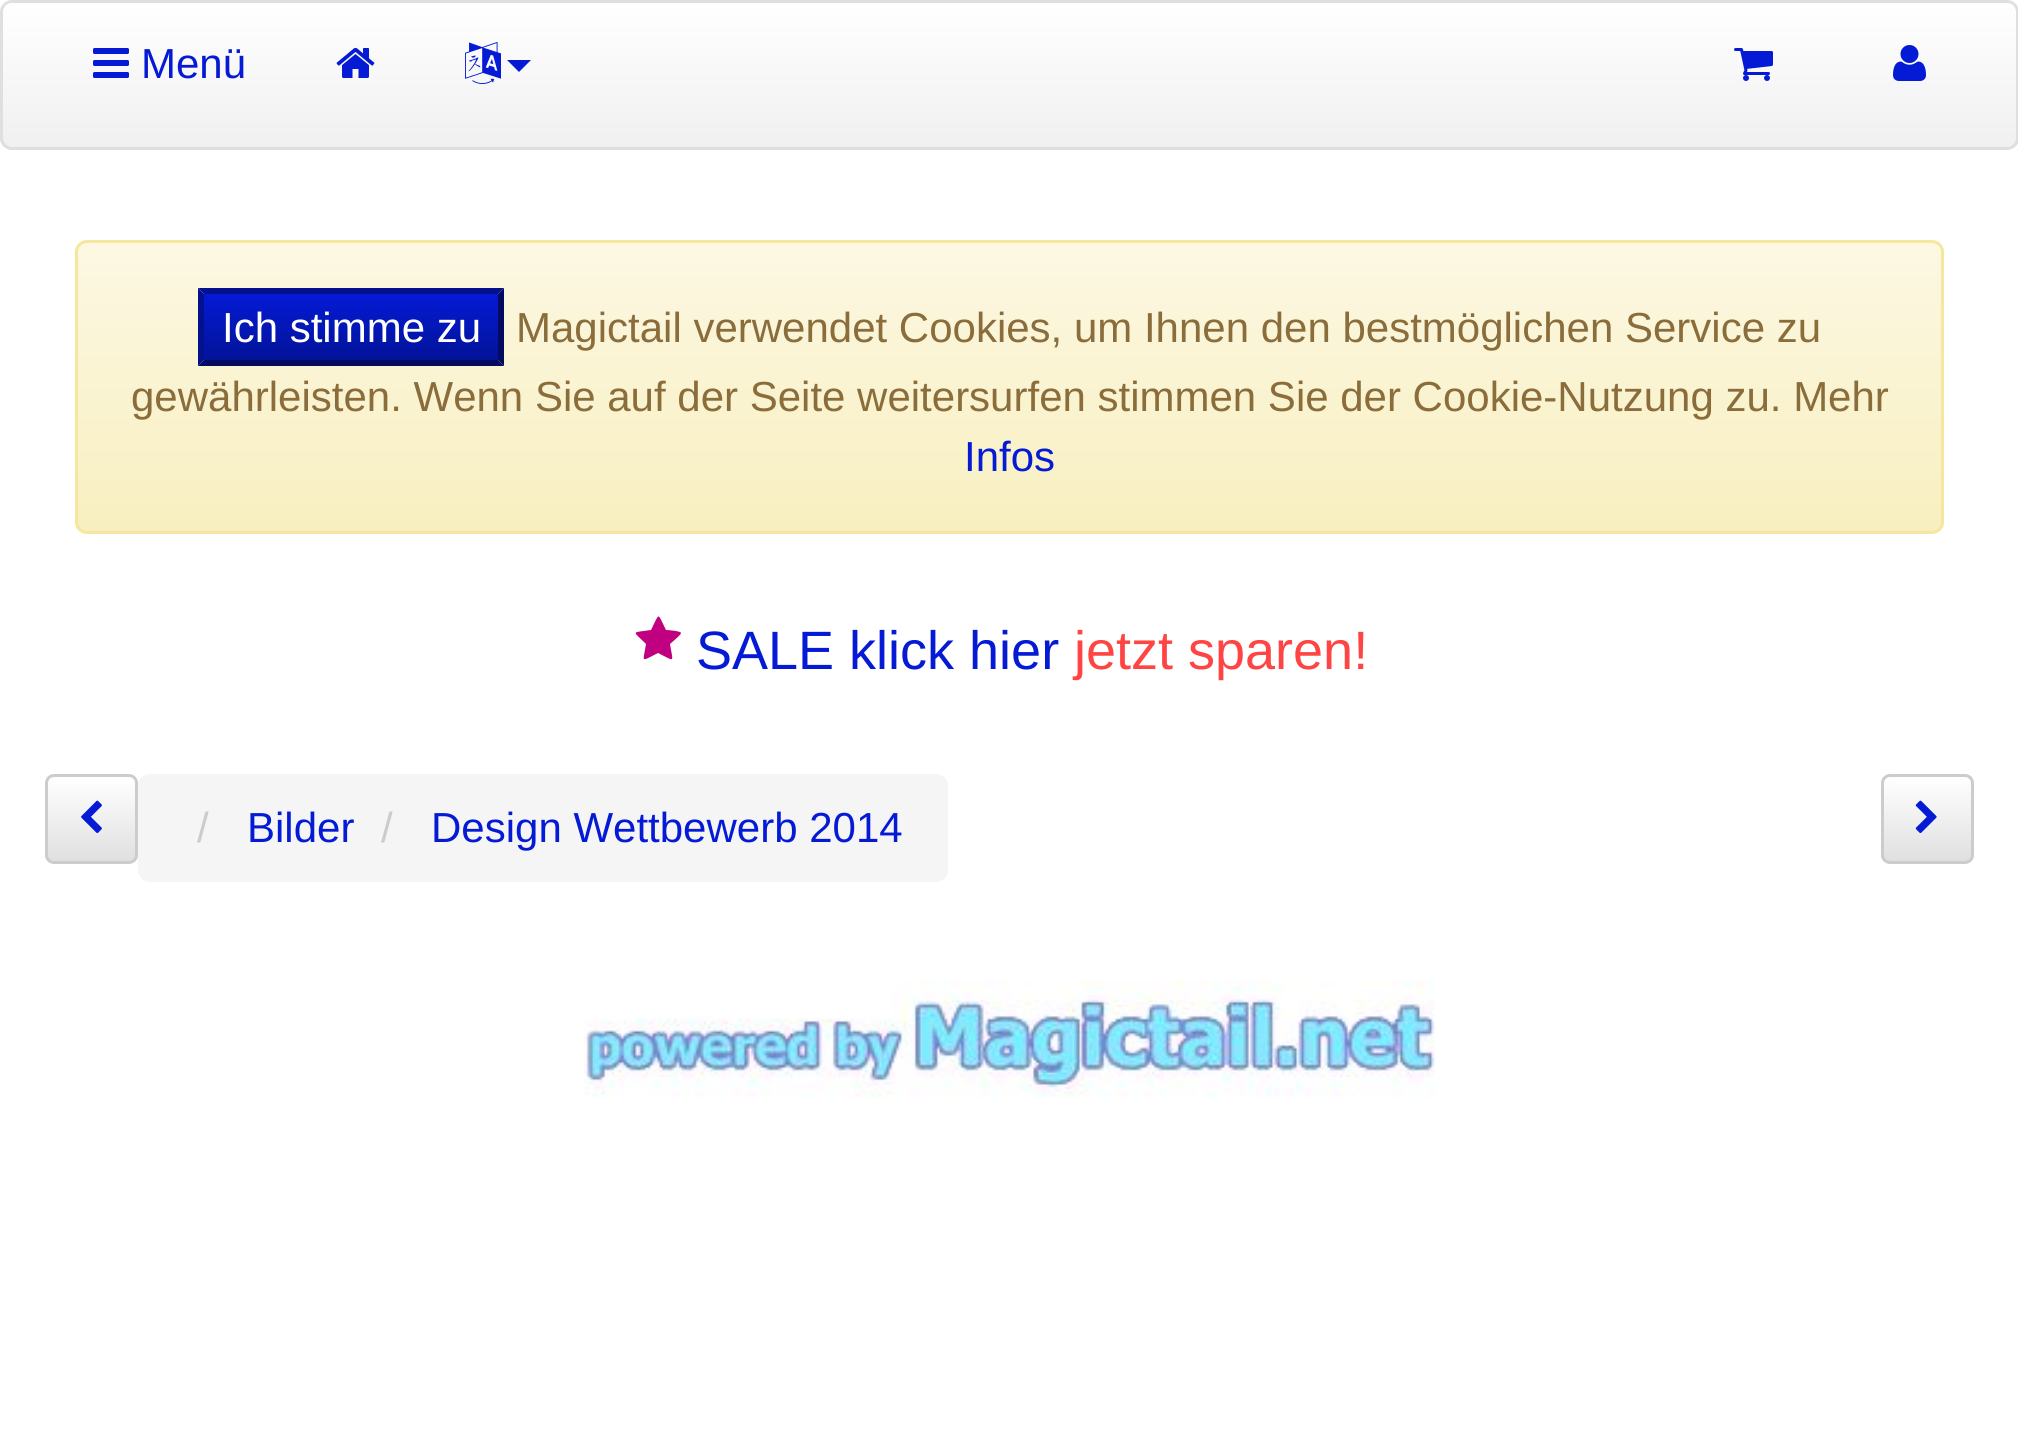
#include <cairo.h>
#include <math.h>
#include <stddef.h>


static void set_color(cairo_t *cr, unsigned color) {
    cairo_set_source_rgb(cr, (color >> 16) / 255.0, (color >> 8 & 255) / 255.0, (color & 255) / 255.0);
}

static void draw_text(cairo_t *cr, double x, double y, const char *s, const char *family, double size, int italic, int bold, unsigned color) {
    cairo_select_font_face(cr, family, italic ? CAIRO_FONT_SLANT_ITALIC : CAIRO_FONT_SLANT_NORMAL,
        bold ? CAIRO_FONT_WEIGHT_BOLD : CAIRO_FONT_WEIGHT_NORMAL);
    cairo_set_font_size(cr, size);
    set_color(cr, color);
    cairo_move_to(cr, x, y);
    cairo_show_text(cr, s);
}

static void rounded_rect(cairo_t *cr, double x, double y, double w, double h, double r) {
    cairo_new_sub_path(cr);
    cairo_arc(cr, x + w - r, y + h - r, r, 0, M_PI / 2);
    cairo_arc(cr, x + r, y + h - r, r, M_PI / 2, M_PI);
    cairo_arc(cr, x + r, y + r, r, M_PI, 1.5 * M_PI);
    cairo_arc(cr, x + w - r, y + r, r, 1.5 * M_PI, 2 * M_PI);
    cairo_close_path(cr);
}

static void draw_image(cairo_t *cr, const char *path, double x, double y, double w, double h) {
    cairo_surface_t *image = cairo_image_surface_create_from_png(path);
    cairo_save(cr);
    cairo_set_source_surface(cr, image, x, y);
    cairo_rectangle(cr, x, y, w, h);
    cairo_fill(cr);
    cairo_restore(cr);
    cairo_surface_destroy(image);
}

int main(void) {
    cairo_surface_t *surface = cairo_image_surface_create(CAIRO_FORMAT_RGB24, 2018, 1440);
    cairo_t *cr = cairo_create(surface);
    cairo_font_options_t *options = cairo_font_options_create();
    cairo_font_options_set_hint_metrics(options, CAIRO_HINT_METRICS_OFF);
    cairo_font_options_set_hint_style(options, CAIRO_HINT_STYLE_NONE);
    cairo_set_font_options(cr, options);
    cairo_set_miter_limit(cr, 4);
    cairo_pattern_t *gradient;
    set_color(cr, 0xFFFFFF);
    cairo_paint(cr);
    cairo_save(cr);
    rounded_rect(cr, 0, 0, 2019, 150, 12);
    cairo_clip(cr);
    gradient = cairo_pattern_create_linear(1010, 3, 1010, 147);
    cairo_pattern_add_color_stop_rgba(gradient, 0, 1, 1, 1, 1);
    cairo_pattern_add_color_stop_rgba(gradient, 1, 0.941, 0.941, 0.941, 1);
    cairo_set_source(cr, gradient);
    cairo_pattern_destroy(gradient);
    cairo_rectangle(cr, 0, 3, 2018, 144);
    cairo_fill(cr);
    cairo_restore(cr);
    rounded_rect(cr, 1.5, 1.5, 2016, 147, 10.5);
    set_color(cr, 0xDFDFDF);
    cairo_set_line_width(cr, 3);
    cairo_stroke(cr);
    cairo_set_source_rgba(cr, 1, 1, 1, 0.1);
    cairo_rectangle(cr, 3, 3, 2013, 3);
    cairo_fill(cr);
    draw_image(cr, "assets/img1.png", 93, 48, 36, 30);
    draw_text(cr, 141, 78, "Menü", "Liberation Sans", 42, 0, 0, 0x041AD5);
    draw_image(cr, "assets/img2.png", 336, 47, 39, 31);
    draw_image(cr, "assets/img3.png", 465, 42, 36, 42);
    cairo_new_path(cr);
    cairo_move_to(cr, 507, 60);
    cairo_line_to(cr, 531, 60);
    cairo_line_to(cr, 519, 72);
    cairo_close_path(cr);
    cairo_fill(cr);
    draw_image(cr, "assets/img4.png", 1734, 48, 39, 33);
    draw_image(cr, "assets/img5.png", 1893, 45, 33, 36);
    cairo_save(cr);
    rounded_rect(cr, 75, 240, 1869, 294, 12);
    cairo_clip(cr);
    gradient = cairo_pattern_create_linear(1010, 243, 1010, 531);
    cairo_pattern_add_color_stop_rgba(gradient, 0, 0.988, 0.973, 0.89, 1);
    cairo_pattern_add_color_stop_rgba(gradient, 1, 0.973, 0.937, 0.753, 1);
    cairo_set_source(cr, gradient);
    cairo_pattern_destroy(gradient);
    cairo_rectangle(cr, 75, 243, 1869, 288);
    cairo_fill(cr);
    cairo_restore(cr);
    rounded_rect(cr, 76.5, 241.5, 1866, 291, 10.5);
    set_color(cr, 0xF5E79E);
    cairo_stroke(cr);
    gradient = cairo_pattern_create_linear(351, 294, 351, 360);
    cairo_pattern_add_color_stop_rgba(gradient, 0, 0.016, 0.102, 0.835, 1);
    cairo_pattern_add_color_stop_rgba(gradient, 1, 0.012, 0.075, 0.6, 1);
    cairo_set_source(cr, gradient);
    cairo_pattern_destroy(gradient);
    cairo_rectangle(cr, 204, 294, 294, 66);
    cairo_fill(cr);
    set_color(cr, 0x03118F);
    cairo_new_path(cr);
    cairo_move_to(cr, 198, 288);
    cairo_line_to(cr, 504, 288);
    cairo_line_to(cr, 498, 294);
    cairo_line_to(cr, 204, 294);
    cairo_close_path(cr);
    cairo_fill(cr);
    set_color(cr, 0x020B5F);
    cairo_new_path(cr);
    cairo_move_to(cr, 504, 288);
    cairo_line_to(cr, 504, 366);
    cairo_line_to(cr, 498, 360);
    cairo_line_to(cr, 498, 294);
    cairo_close_path(cr);
    cairo_fill(cr);
    cairo_new_path(cr);
    cairo_move_to(cr, 504, 366);
    cairo_line_to(cr, 198, 366);
    cairo_line_to(cr, 204, 360);
    cairo_line_to(cr, 498, 360);
    cairo_close_path(cr);
    cairo_fill(cr);
    set_color(cr, 0x03118F);
    cairo_new_path(cr);
    cairo_move_to(cr, 198, 366);
    cairo_line_to(cr, 198, 288);
    cairo_line_to(cr, 204, 294);
    cairo_line_to(cr, 204, 360);
    cairo_close_path(cr);
    cairo_fill(cr);
    draw_text(cr, 222, 342, "Ich stimme zu", "Liberation Sans", 42, 0, 0, 0xFFFFFF);
    draw_text(cr, 516, 342, "Magictail verwendet Cookies, um Ihnen den bestmöglichen Service zu", "Liberation Sans", 42, 0, 0, 0x8A6D3B);
    draw_text(cr, 131, 411, "gewährleisten. Wenn Sie auf der Seite weitersurfen stimmen Sie der Cookie-Nutzung zu. Mehr", "Liberation Sans", 42, 0, 0, 0x8A6D3B);
    draw_text(cr, 964, 471, "Infos", "Liberation Sans", 42, 0, 0, 0x041AD5);
    set_color(cr, 0xC00080);
    cairo_new_path(cr);
    cairo_move_to(cr, 681, 633);
    cairo_curve_to(cr, 681, 635, 672, 642, 670, 644);
    cairo_curve_to(cr, 673, 663, 676, 662, 658, 653);
    cairo_curve_to(cr, 640, 662, 643, 663, 646, 644);
    cairo_curve_to(cr, 632, 630, 631, 633, 651, 630);
    cairo_curve_to(cr, 660, 612, 657, 612, 666, 630);
    cairo_curve_to(cr, 668, 630, 681, 631, 681, 633);
    cairo_close_path(cr);
    cairo_fill(cr);
    draw_text(cr, 696, 669, "SALE klick hier", "Liberation Sans", 54, 0, 0, 0x041AD5);
    draw_text(cr, 1074, 669, "jetzt sparen!", "Liberation Sans", 54, 0, 0, 0xFF4444);
    cairo_save(cr);
    rounded_rect(cr, 45, 774, 93, 90, 9);
    cairo_clip(cr);
    gradient = cairo_pattern_create_linear(92, 777, 92, 861);
    cairo_pattern_add_color_stop_rgba(gradient, 0, 1, 1, 1, 1);
    cairo_pattern_add_color_stop_rgba(gradient, 1, 0.878, 0.878, 0.878, 1);
    cairo_set_source(cr, gradient);
    cairo_pattern_destroy(gradient);
    cairo_rectangle(cr, 45, 777, 93, 84);
    cairo_fill(cr);
    cairo_restore(cr);
    rounded_rect(cr, 46.5, 775.5, 90, 87, 7.5);
    set_color(cr, 0xCCCCCC);
    cairo_stroke(cr);
    draw_image(cr, "assets/img6.png", 81, 800, 21, 33);
    set_color(cr, 0xF5F5F5);
    rounded_rect(cr, 138, 774, 810, 108, 12);
    cairo_fill(cr);
    draw_text(cr, 197, 842, "/", "Liberation Sans", 42, 0, 0, 0xCCCCCC);
    draw_text(cr, 247, 842, "Bilder", "Liberation Sans", 42, 0, 0, 0x041AD5);
    draw_text(cr, 381, 842, "/", "Liberation Sans", 42, 0, 0, 0xCCCCCC);
    draw_text(cr, 431, 842, "Design Wettbewerb 2014", "Liberation Sans", 42, 0, 0, 0x041AD5);
    cairo_save(cr);
    rounded_rect(cr, 1881, 774, 93, 90, 9);
    cairo_clip(cr);
    gradient = cairo_pattern_create_linear(1928, 777, 1928, 861);
    cairo_pattern_add_color_stop_rgba(gradient, 0, 1, 1, 1, 1);
    cairo_pattern_add_color_stop_rgba(gradient, 1, 0.878, 0.878, 0.878, 1);
    cairo_set_source(cr, gradient);
    cairo_pattern_destroy(gradient);
    cairo_rectangle(cr, 1881, 777, 93, 84);
    cairo_fill(cr);
    cairo_restore(cr);
    rounded_rect(cr, 1882.5, 775.5, 90, 87, 7.5);
    set_color(cr, 0xCCCCCC);
    cairo_stroke(cr);
    draw_image(cr, "assets/img7.png", 1915, 800, 22, 33);
    draw_image(cr, "assets/img8.png", 584, 980, 852, 118);
    cairo_surface_write_to_png(surface, "output.png");
    cairo_font_options_destroy(options);
    cairo_destroy(cr);
    cairo_surface_destroy(surface);
    return 0;
}
